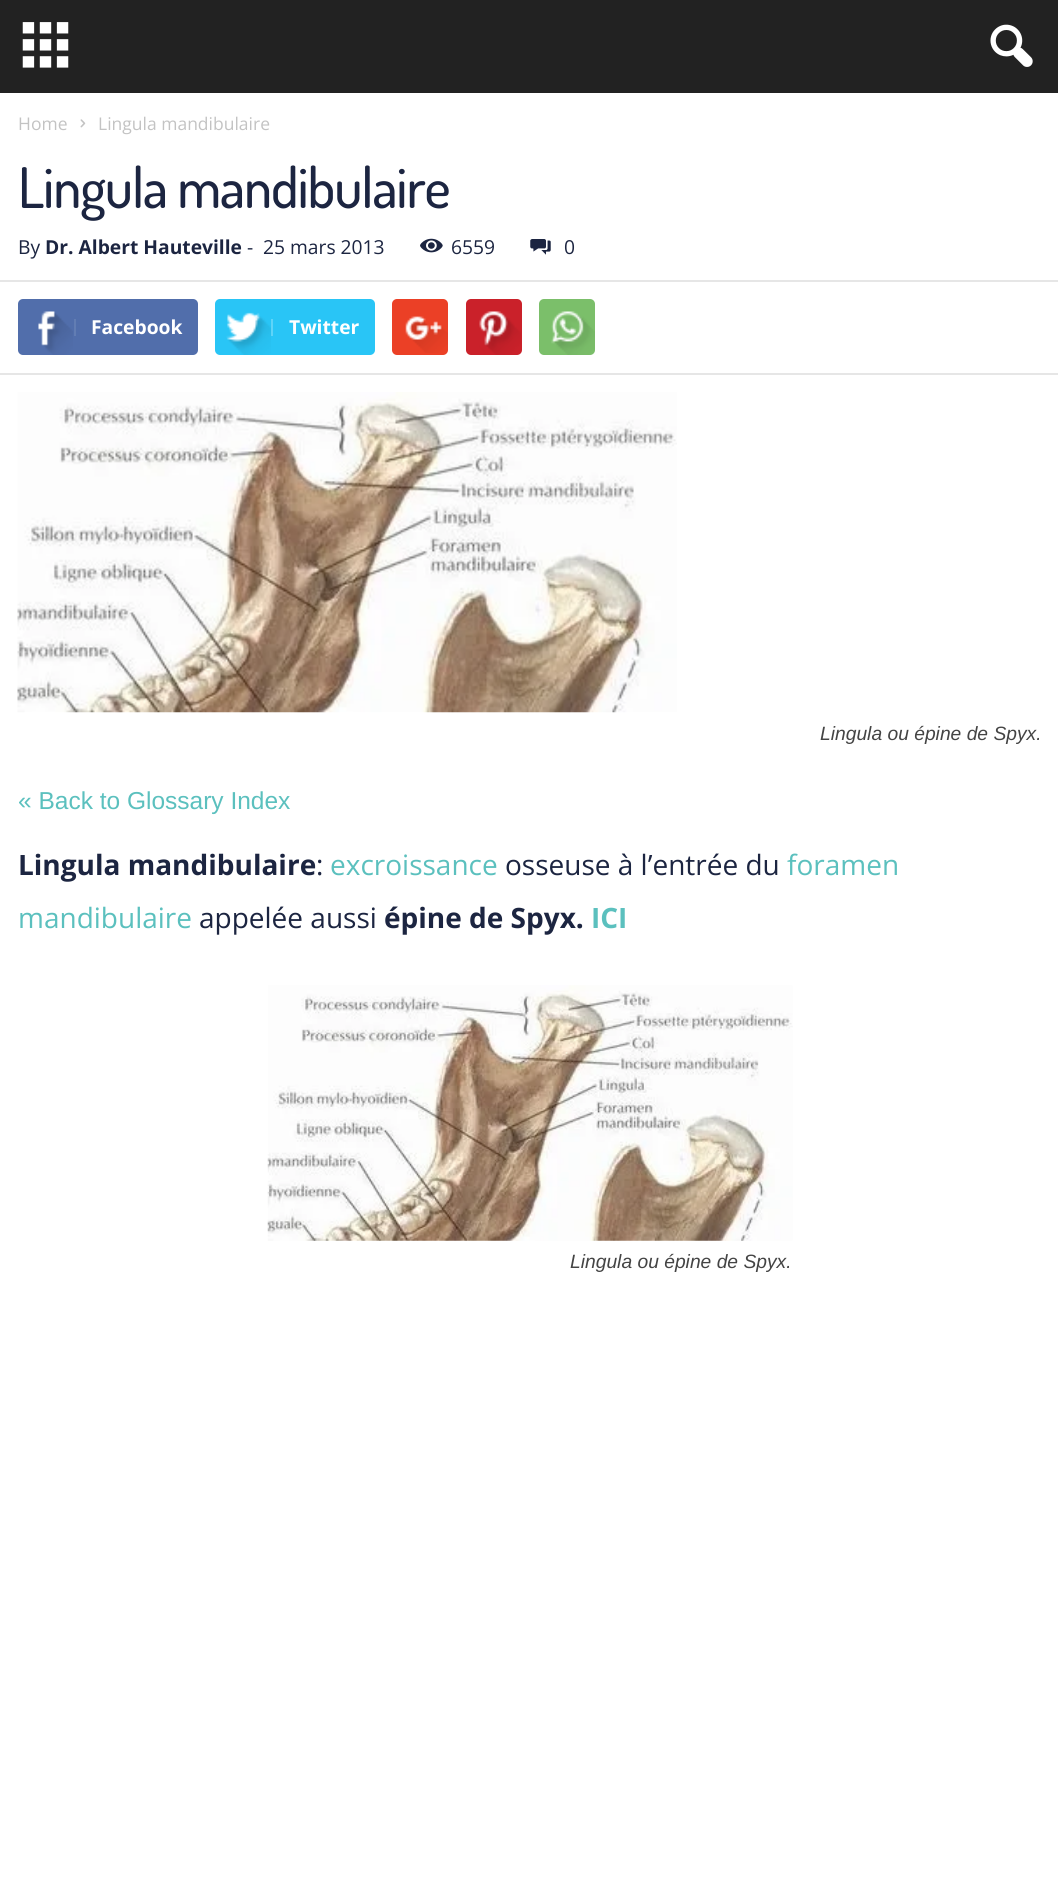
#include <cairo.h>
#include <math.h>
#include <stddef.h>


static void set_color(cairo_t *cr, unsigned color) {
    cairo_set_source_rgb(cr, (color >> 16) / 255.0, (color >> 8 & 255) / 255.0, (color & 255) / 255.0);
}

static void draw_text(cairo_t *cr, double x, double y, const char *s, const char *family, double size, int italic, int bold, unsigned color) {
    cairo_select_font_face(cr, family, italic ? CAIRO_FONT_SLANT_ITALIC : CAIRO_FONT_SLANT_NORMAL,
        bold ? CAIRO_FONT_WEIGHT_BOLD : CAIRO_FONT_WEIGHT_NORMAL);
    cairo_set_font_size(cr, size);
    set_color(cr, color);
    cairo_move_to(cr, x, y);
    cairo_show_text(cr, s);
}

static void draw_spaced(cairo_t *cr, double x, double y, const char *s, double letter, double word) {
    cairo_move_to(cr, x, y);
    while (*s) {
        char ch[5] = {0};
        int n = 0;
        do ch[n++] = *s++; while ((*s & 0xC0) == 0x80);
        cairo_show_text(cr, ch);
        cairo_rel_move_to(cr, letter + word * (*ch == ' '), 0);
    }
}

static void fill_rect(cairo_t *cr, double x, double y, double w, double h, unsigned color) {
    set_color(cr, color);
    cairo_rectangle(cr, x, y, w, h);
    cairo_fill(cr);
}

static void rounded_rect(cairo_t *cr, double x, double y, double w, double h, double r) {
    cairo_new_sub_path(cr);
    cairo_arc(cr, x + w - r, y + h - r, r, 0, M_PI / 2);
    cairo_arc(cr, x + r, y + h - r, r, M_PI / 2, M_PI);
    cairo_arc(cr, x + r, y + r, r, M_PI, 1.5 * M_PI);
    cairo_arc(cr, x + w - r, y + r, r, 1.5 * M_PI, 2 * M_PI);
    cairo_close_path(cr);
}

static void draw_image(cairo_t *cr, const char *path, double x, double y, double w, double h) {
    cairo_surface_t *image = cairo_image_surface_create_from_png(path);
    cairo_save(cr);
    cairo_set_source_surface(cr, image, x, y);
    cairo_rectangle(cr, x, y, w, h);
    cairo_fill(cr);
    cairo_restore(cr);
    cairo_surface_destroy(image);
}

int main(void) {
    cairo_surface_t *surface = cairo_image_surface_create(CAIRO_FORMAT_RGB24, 1058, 1877);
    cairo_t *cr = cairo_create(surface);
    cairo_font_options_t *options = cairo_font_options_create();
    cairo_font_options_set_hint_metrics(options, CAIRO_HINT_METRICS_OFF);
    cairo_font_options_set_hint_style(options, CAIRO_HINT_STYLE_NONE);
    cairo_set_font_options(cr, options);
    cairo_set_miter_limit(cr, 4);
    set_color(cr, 0xFFFFFF);
    cairo_paint(cr);
    fill_rect(cr, 0, 0, 1058, 93, 0x222222);
    draw_image(cr, "assets/img1.png", 22, 22, 47, 46);
    draw_image(cr, "assets/img2.png", 990, 24, 43, 43);
    draw_text(cr, 18, 130, "Home", "Open Sans", 17.5, 0, 0, 0xC3C3C3);
    draw_image(cr, "assets/img3.png", 80, 119, 6, 9);
    draw_text(cr, 98, 130, "Lingula mandibulaire", "Open Sans", 17.5, 0, 0, 0xC3C3C3);
    cairo_select_font_face(cr, "Dosis Medium", CAIRO_FONT_SLANT_NORMAL, CAIRO_FONT_WEIGHT_NORMAL);
    cairo_set_font_size(cr, 56);
    set_color(cr, 0x1C2541);
    draw_spaced(cr, 18, 208, "Lingula mandibulaire", -1.1, 0);
    draw_text(cr, 18, 254, "By", "Open Sans", 19.25, 0, 0, 0x1C2541);
    draw_text(cr, 45, 254, "Dr. Albert Hauteville", "Open Sans", 19.25, 0, 1, 0x1C2541);
    draw_text(cr, 247, 254, "-", "Open Sans", 19.25, 0, 0, 0x1C2541);
    draw_text(cr, 263, 254, "25 mars 2013", "Open Sans", 19.25, 0, 0, 0x1C2541);
    draw_image(cr, "assets/img4.png", 420, 238, 23, 15);
    draw_text(cr, 451, 254, "6559", "Open Sans", 19.25, 0, 0, 0x1C2541);
    draw_image(cr, "assets/img5.png", 530, 239, 21, 16);
    draw_text(cr, 564, 254, "0", "Open Sans", 19.25, 0, 0, 0x1C2541);
    fill_rect(cr, 0, 280, 1058, 2, 0xE6E6E6);
    set_color(cr, 0x516EAB);
    rounded_rect(cr, 18, 299, 180, 56, 5);
    cairo_fill(cr);
    draw_image(cr, "assets/img6.png", 38, 311, 35, 44);
    fill_rect(cr, 74, 319, 2, 17, 0x627DB3);
    draw_text(cr, 91, 334, "Facebook", "Open Sans", 19.25, 0, 1, 0xFFFFFF);
    set_color(cr, 0x29C5F6);
    rounded_rect(cr, 215, 299, 160, 56, 5);
    cairo_fill(cr);
    draw_image(cr, "assets/img7.png", 226, 312, 45, 43);
    fill_rect(cr, 271, 319, 2, 17, 0x5FD4F8);
    draw_text(cr, 289, 334, "Twitter", "Open Sans", 19.25, 0, 1, 0xFFFFFF);
    set_color(cr, 0xEB4026);
    rounded_rect(cr, 392, 299, 56, 56, 5);
    cairo_fill(cr);
    draw_image(cr, "assets/img8.png", 405, 316, 43, 37);
    set_color(cr, 0xCA212A);
    rounded_rect(cr, 466, 299, 56, 56, 5);
    cairo_fill(cr);
    draw_image(cr, "assets/img9.png", 479, 311, 42, 44);
    set_color(cr, 0x7BBF6A);
    rounded_rect(cr, 539, 299, 56, 56, 5);
    cairo_fill(cr);
    draw_image(cr, "assets/img10.png", 551, 311, 44, 44);
    fill_rect(cr, 0, 373, 1058, 2, 0xE6E6E6);
    draw_image(cr, "assets/img11.png", 17, 392, 660, 321);
    draw_text(cr, 820, 740, "Lingula ou épine de Spyx.", "Liberation Sans", 19.25, 1, 0, 0x444444);
    draw_text(cr, 18, 809, "« Back to Glossary Index", "Liberation Sans", 24.5, 0, 0, 0x5BC0BE);
    draw_text(cr, 18, 875, "Lingula mandibulaire", "Open Sans", 28, 0, 1, 0x1C2541);
    draw_text(cr, 316, 875, ":", "Open Sans", 28, 0, 0, 0x1C2541);
    draw_text(cr, 330, 875, "excroissance", "Open Sans", 28, 0, 0, 0x5BC0BE);
    draw_text(cr, 505, 875, "osseuse à l’entrée du", "Open Sans", 28, 0, 0, 0x1C2541);
    draw_text(cr, 787, 875, "foramen", "Open Sans", 28, 0, 0, 0x5BC0BE);
    draw_text(cr, 18, 928, "mandibulaire", "Open Sans", 28, 0, 0, 0x5BC0BE);
    draw_text(cr, 199, 928, "appelée aussi", "Open Sans", 28, 0, 0, 0x1C2541);
    draw_text(cr, 384, 928, "épine de Spyx.", "Open Sans", 28, 0, 1, 0x1C2541);
    draw_text(cr, 591, 928, "ICI", "Open Sans", 28, 0, 1, 0x5BC0BE);
    draw_image(cr, "assets/img12.png", 267, 985, 526, 256);
    draw_text(cr, 570, 1268, "Lingula ou épine de Spyx.", "Liberation Sans", 19.25, 1, 0, 0x444444);
    cairo_surface_write_to_png(surface, "output.png");
    cairo_font_options_destroy(options);
    cairo_destroy(cr);
    cairo_surface_destroy(surface);
    return 0;
}
